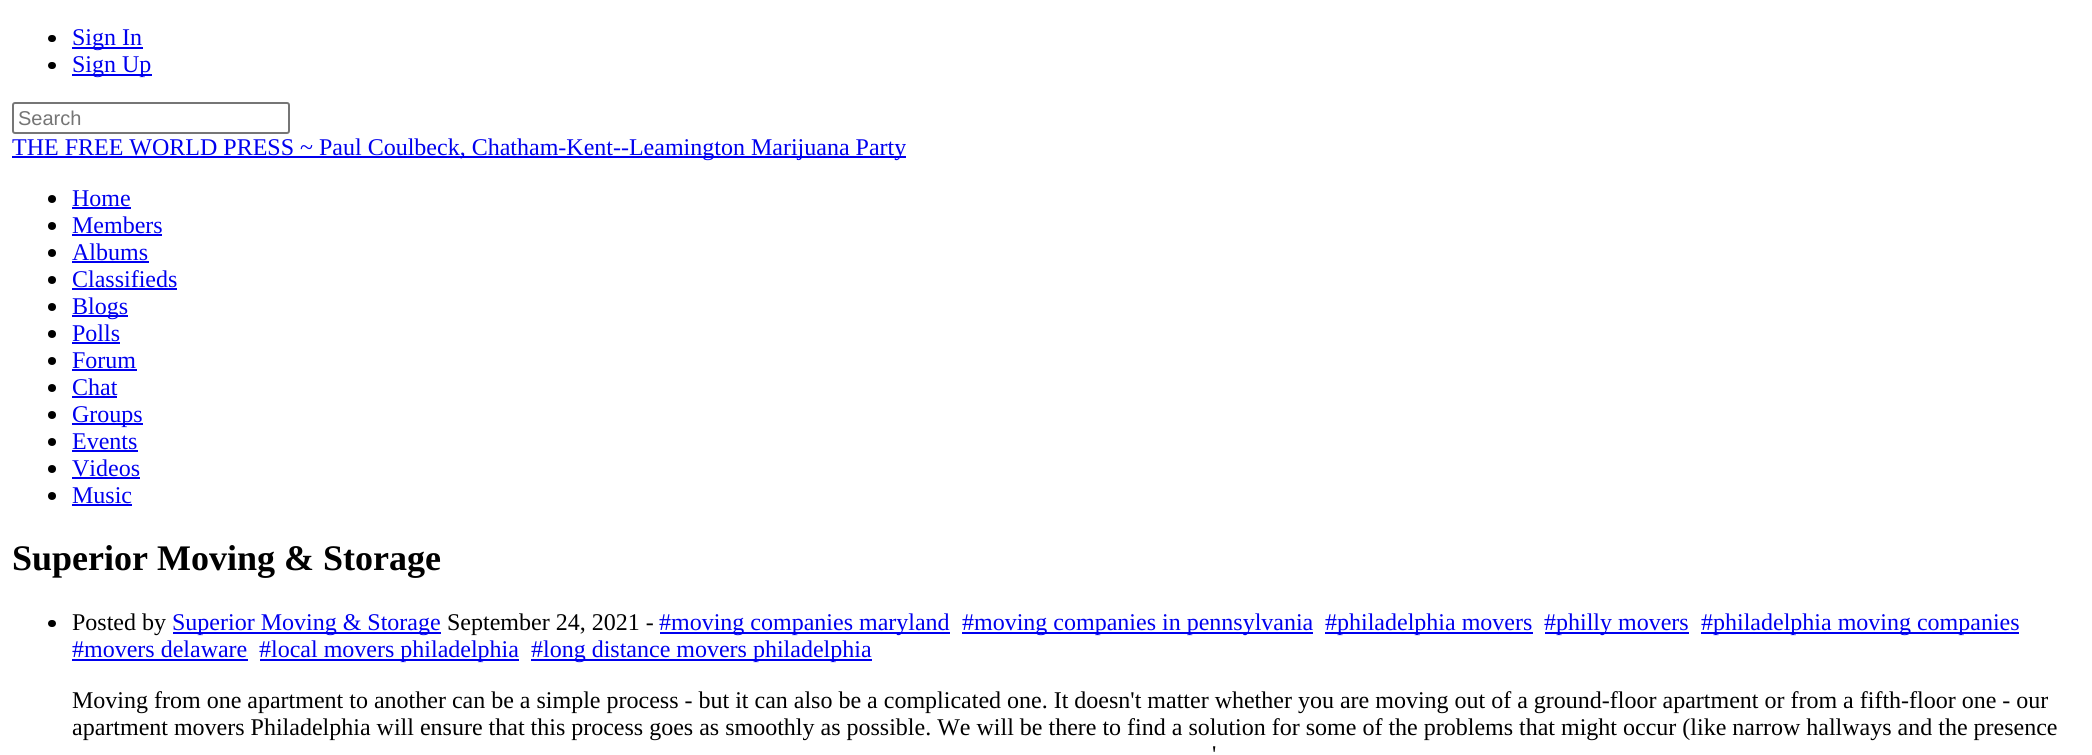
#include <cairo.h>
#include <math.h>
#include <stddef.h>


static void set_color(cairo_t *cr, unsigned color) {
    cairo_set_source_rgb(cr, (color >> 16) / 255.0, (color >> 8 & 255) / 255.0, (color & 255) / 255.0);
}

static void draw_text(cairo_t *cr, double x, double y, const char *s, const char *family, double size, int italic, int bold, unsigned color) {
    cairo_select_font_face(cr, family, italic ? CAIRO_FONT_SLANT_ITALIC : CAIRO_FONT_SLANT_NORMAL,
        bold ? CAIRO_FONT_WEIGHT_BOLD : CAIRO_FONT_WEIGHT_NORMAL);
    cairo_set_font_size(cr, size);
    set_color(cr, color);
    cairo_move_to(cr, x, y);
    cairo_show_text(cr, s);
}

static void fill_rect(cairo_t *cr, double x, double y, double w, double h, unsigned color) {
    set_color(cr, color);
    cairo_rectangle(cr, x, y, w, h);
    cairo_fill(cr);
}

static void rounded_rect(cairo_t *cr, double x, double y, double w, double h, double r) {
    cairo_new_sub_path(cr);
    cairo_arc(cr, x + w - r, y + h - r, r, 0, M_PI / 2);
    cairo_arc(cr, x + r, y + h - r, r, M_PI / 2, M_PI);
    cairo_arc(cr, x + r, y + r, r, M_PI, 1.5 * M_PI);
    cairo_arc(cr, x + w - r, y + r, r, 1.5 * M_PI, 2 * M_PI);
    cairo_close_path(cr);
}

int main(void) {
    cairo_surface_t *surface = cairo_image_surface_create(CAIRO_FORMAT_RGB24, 2092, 755);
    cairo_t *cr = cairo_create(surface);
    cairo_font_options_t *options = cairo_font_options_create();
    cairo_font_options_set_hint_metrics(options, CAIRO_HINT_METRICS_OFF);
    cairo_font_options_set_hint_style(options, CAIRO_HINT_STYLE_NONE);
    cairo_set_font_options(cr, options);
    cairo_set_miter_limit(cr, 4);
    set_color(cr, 0xFFFFFF);
    cairo_paint(cr);
    set_color(cr, 0x000000);
    rounded_rect(cr, 48, 35, 8, 7, 3.5);
    cairo_fill(cr);
    fill_rect(cr, 72, 47, 71, 2, 0x0000EE);
    draw_text(cr, 72, 45, "Sign In", "Liberation Serif", 24, 0, 0, 0x0000EE);
    set_color(cr, 0x000000);
    rounded_rect(cr, 48, 62, 8, 7, 3.5);
    cairo_fill(cr);
    fill_rect(cr, 72, 74, 80, 2, 0x0000EE);
    draw_text(cr, 72, 72, "Sign Up", "Liberation Serif", 24, 0, 0, 0x0000EE);
    rounded_rect(cr, 13, 103, 276, 30, 2);
    set_color(cr, 0x767676);
    cairo_stroke(cr);
    draw_text(cr, 18, 125, "Search", "Liberation Sans", 20, 0, 0, 0x757575);
    fill_rect(cr, 12, 156, 894, 2, 0x0000EE);
    draw_text(cr, 12, 155, "THE FREE WORLD PRESS ~ Paul Coulbeck, Chatham-Kent--Leamington Marijuana Party", "Liberation Serif", 24, 0, 0, 0x0000EE);
    set_color(cr, 0x000000);
    cairo_new_path(cr);
    cairo_arc(cr, 52, 199, 4, 0, 2 * M_PI);
    cairo_fill(cr);
    draw_text(cr, 72, 206, "Home", "Liberation Serif", 24, 0, 0, 0x0000EE);
    fill_rect(cr, 72, 207, 59, 2, 0x0000EE);
    set_color(cr, 0x000000);
    cairo_new_path(cr);
    cairo_arc(cr, 52, 226, 4, 0, 2 * M_PI);
    cairo_fill(cr);
    draw_text(cr, 72, 233, "Members", "Liberation Serif", 24, 0, 0, 0x0000EE);
    fill_rect(cr, 72, 234, 90, 2, 0x0000EE);
    set_color(cr, 0x000000);
    cairo_new_path(cr);
    cairo_arc(cr, 52, 253, 4, 0, 2 * M_PI);
    cairo_fill(cr);
    draw_text(cr, 72, 260, "Albums", "Liberation Serif", 24, 0, 0, 0x0000EE);
    fill_rect(cr, 72, 261, 77, 2, 0x0000EE);
    set_color(cr, 0x000000);
    cairo_new_path(cr);
    cairo_arc(cr, 52, 280, 4, 0, 2 * M_PI);
    cairo_fill(cr);
    draw_text(cr, 72, 287, "Classifieds", "Liberation Serif", 24, 0, 0, 0x0000EE);
    fill_rect(cr, 72, 288, 105, 2, 0x0000EE);
    set_color(cr, 0x000000);
    cairo_new_path(cr);
    cairo_arc(cr, 52, 307, 4, 0, 2 * M_PI);
    cairo_fill(cr);
    fill_rect(cr, 72, 315, 56, 2, 0x0000EE);
    draw_text(cr, 72, 314, "Blogs", "Liberation Serif", 24, 0, 0, 0x0000EE);
    set_color(cr, 0x000000);
    cairo_new_path(cr);
    cairo_arc(cr, 52, 334, 4, 0, 2 * M_PI);
    cairo_fill(cr);
    draw_text(cr, 72, 341, "Polls", "Liberation Serif", 24, 0, 0, 0x0000EE);
    fill_rect(cr, 72, 342, 48, 2, 0x0000EE);
    set_color(cr, 0x000000);
    cairo_new_path(cr);
    cairo_arc(cr, 52, 361, 4, 0, 2 * M_PI);
    cairo_fill(cr);
    draw_text(cr, 72, 368, "Forum", "Liberation Serif", 24, 0, 0, 0x0000EE);
    fill_rect(cr, 72, 369, 65, 2, 0x0000EE);
    set_color(cr, 0x000000);
    cairo_new_path(cr);
    cairo_arc(cr, 52, 388, 4, 0, 2 * M_PI);
    cairo_fill(cr);
    draw_text(cr, 72, 395, "Chat", "Liberation Serif", 24, 0, 0, 0x0000EE);
    fill_rect(cr, 72, 396, 45, 2, 0x0000EE);
    set_color(cr, 0x000000);
    cairo_new_path(cr);
    cairo_arc(cr, 52, 415, 4, 0, 2 * M_PI);
    cairo_fill(cr);
    fill_rect(cr, 72, 423, 71, 2, 0x0000EE);
    draw_text(cr, 72, 422, "Groups", "Liberation Serif", 24, 0, 0, 0x0000EE);
    set_color(cr, 0x000000);
    cairo_new_path(cr);
    cairo_arc(cr, 52, 442, 4, 0, 2 * M_PI);
    cairo_fill(cr);
    draw_text(cr, 72, 449, "Events", "Liberation Serif", 24, 0, 0, 0x0000EE);
    fill_rect(cr, 72, 450, 66, 2, 0x0000EE);
    set_color(cr, 0x000000);
    cairo_new_path(cr);
    cairo_arc(cr, 52, 469, 4, 0, 2 * M_PI);
    cairo_fill(cr);
    draw_text(cr, 72, 476, "Videos", "Liberation Serif", 24, 0, 0, 0x0000EE);
    fill_rect(cr, 72, 477, 68, 2, 0x0000EE);
    set_color(cr, 0x000000);
    cairo_new_path(cr);
    cairo_arc(cr, 52, 496, 4, 0, 2 * M_PI);
    cairo_fill(cr);
    draw_text(cr, 72, 503, "Music", "Liberation Serif", 24, 0, 0, 0x0000EE);
    fill_rect(cr, 72, 504, 60, 2, 0x0000EE);
    draw_text(cr, 12, 570, "Superior Moving & Storage", "Liberation Serif", 36, 0, 1, 0x000000);
    rounded_rect(cr, 48, 620, 8, 7, 3.5);
    cairo_fill(cr);
    draw_text(cr, 72, 630, "Posted by", "Liberation Serif", 24, 0, 0, 0x000000);
    fill_rect(cr, 173, 632, 268, 2, 0x0000EE);
    draw_text(cr, 172, 630, "Superior Moving & Storage", "Liberation Serif", 24, 0, 0, 0x0000EE);
    draw_text(cr, 447, 630, "September 24, 2021 -", "Liberation Serif", 24, 0, 0, 0x000000);
    fill_rect(cr, 660, 632, 290, 2, 0x0000EE);
    draw_text(cr, 659, 630, "#moving companies maryland", "Liberation Serif", 24, 0, 0, 0x0000EE);
    fill_rect(cr, 962, 632, 351, 2, 0x0000EE);
    draw_text(cr, 962, 630, "#moving companies in pennsylvania", "Liberation Serif", 24, 0, 0, 0x0000EE);
    fill_rect(cr, 1325, 632, 208, 2, 0x0000EE);
    draw_text(cr, 1325, 630, "#philadelphia movers", "Liberation Serif", 24, 0, 0, 0x0000EE);
    fill_rect(cr, 1545, 632, 144, 2, 0x0000EE);
    draw_text(cr, 1544, 630, "#philly movers", "Liberation Serif", 24, 0, 0, 0x0000EE);
    fill_rect(cr, 1701, 632, 318, 2, 0x0000EE);
    draw_text(cr, 1701, 630, "#philadelphia moving companies", "Liberation Serif", 24, 0, 0, 0x0000EE);
    draw_text(cr, 72, 657, "#movers delaware", "Liberation Serif", 24, 0, 0, 0x0000EE);
    fill_rect(cr, 72, 659, 176, 2, 0x0000EE);
    fill_rect(cr, 260, 659, 259, 2, 0x0000EE);
    draw_text(cr, 259, 657, "#local movers philadelphia", "Liberation Serif", 24, 0, 0, 0x0000EE);
    fill_rect(cr, 531, 659, 341, 2, 0x0000EE);
    draw_text(cr, 531, 657, "#long distance movers philadelphia", "Liberation Serif", 24, 0, 0, 0x0000EE);
    draw_text(cr, 72, 708, "Moving from one apartment to another can be a simple process - but it can also be a complicated one. It doesn't matter whether you are moving out of a ground-floor apartment or from a fifth-floor one - our", "Liberation Serif", 24, 0, 0, 0x000000);
    draw_text(cr, 72, 735, "apartment movers Philadelphia will ensure that this process goes as smoothly as possible. We will be there to find a solution for some of the problems that might occur (like narrow hallways and the presence", "Liberation Serif", 24, 0, 0, 0x000000);
    draw_text(cr, 1212, 762, "'", "Liberation Serif", 24, 0, 0, 0x000000);
    cairo_surface_write_to_png(surface, "output.png");
    cairo_font_options_destroy(options);
    cairo_destroy(cr);
    cairo_surface_destroy(surface);
    return 0;
}
